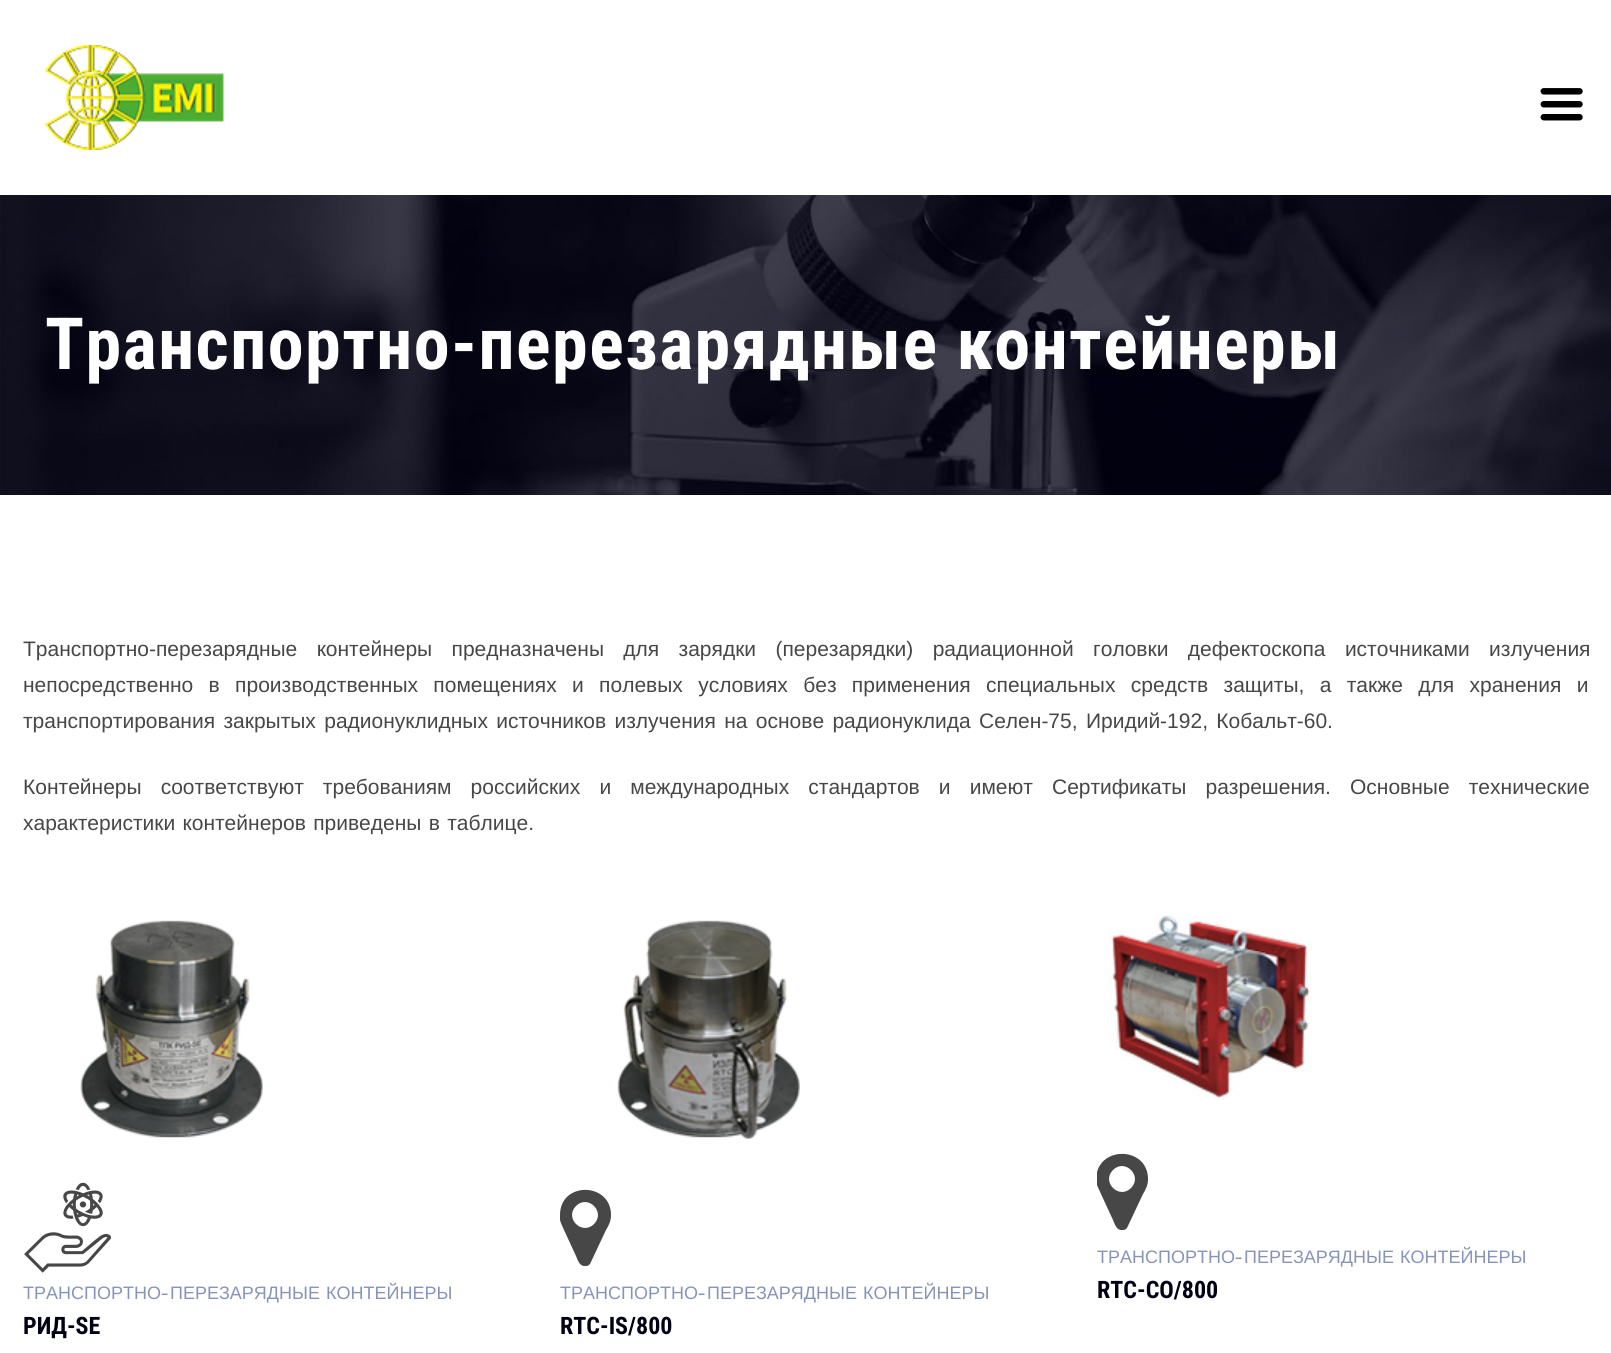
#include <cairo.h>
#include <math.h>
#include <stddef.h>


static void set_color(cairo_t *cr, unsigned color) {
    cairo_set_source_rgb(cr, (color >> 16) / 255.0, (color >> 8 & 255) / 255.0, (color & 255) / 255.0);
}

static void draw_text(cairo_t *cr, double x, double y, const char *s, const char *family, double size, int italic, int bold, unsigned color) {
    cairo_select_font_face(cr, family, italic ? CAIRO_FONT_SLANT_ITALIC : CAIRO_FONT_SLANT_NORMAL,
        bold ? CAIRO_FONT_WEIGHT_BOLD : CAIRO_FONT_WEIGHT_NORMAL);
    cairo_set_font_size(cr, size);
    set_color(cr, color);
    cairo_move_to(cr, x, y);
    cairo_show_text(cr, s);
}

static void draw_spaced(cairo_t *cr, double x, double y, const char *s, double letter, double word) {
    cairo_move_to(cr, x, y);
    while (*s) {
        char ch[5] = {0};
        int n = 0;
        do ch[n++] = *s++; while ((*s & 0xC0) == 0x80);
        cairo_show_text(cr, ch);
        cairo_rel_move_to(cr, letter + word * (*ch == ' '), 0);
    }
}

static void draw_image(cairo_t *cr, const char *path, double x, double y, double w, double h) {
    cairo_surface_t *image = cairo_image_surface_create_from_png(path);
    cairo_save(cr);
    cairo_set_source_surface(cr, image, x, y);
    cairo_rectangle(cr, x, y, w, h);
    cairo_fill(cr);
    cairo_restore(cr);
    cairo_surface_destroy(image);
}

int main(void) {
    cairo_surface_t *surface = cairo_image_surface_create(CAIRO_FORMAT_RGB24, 1611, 1353);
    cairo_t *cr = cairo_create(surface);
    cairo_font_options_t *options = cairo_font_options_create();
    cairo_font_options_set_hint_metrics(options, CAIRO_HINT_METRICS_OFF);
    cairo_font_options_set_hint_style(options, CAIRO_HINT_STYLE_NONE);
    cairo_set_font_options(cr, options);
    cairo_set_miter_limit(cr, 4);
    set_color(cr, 0xFFFFFF);
    cairo_paint(cr);
    draw_image(cr, "assets/img1.png", 45, 45, 179, 105);
    draw_image(cr, "assets/img2.png", 1540, 88, 43, 33);
    draw_image(cr, "assets/img3.png", 0, 195, 1611, 300);
    cairo_select_font_face(cr, "Roboto Condensed", CAIRO_FONT_SLANT_NORMAL, CAIRO_FONT_WEIGHT_BOLD);
    cairo_set_font_size(cr, 72);
    set_color(cr, 0xFFFFFF);
    draw_spaced(cr, 45, 369, "Транспортно-перезарядные контейнеры", 1.5, 0);
    cairo_select_font_face(cr, "Liberation Sans", CAIRO_FONT_SLANT_NORMAL, CAIRO_FONT_WEIGHT_NORMAL);
    cairo_set_font_size(cr, 21);
    set_color(cr, 0x474747);
    draw_spaced(cr, 23, 656, "Транспортно-перезарядные контейнеры предназначены для зарядки (перезарядки) радиационной головки дефектоскопа источниками излучения", 0, 13.5);
    draw_spaced(cr, 23, 692, "непосредственно в производственных помещениях и полевых условиях без применения специальных средств защиты, а также для хранения и", 0, 9.5);
    draw_spaced(cr, 23, 728, "транспортирования закрытых радионуклидных источников излучения на основе радионуклида Селен-75, Иридий-192, Кобальт-60.", 0, 2.5);
    draw_spaced(cr, 23, 794, "Контейнеры соответствуют требованиям российских и международных стандартов и имеют Сертификаты разрешения. Основные технические", 0, 13.25);
    draw_spaced(cr, 23, 830, "характеристики контейнеров приведены в таблице.", 0, 1.5);
    draw_image(cr, "assets/img4.png", 1109, 915, 204, 184);
    cairo_save(cr);
    cairo_rectangle(cr, 1097, 893, 492, 420);
    cairo_clip(cr);
    cairo_new_path(cr);
    cairo_move_to(cr, 1131, 1188);
    cairo_curve_to(cr, 1143, 1176, 1125, 1158, 1113, 1170);
    cairo_curve_to(cr, 1101, 1182, 1119, 1200, 1131, 1188);
    cairo_close_path(cr);
    cairo_move_to(cr, 1148, 1179);
    cairo_curve_to(cr, 1148, 1185, 1146, 1189, 1143, 1194);
    cairo_line_to(cr, 1127, 1228);
    cairo_curve_to(cr, 1126, 1229, 1125, 1230, 1123, 1230);
    cairo_curve_to(cr, 1117, 1231, 1115, 1225, 1113, 1220);
    cairo_line_to(cr, 1101, 1194);
    cairo_curve_to(cr, 1099, 1189, 1096, 1185, 1096, 1179);
    cairo_curve_to(cr, 1097, 1145, 1148, 1146, 1148, 1179);
    cairo_close_path(cr);
    cairo_fill(cr);
    cairo_restore(cr);
    draw_text(cr, 1097, 1263, "ТРАНСПОРТНО", "Liberation Sans", 18, 0, 0, 0x8893B9);
    draw_text(cr, 1234, 1263, "-", "Work Sans", 18, 0, 0, 0x8893B9);
    cairo_select_font_face(cr, "Liberation Sans", CAIRO_FONT_SLANT_NORMAL, CAIRO_FONT_WEIGHT_NORMAL);
    draw_spaced(cr, 1244, 1263, "ПЕРЕЗАРЯДНЫЕ КОНТЕЙНЕРЫ", 0, 1);
    draw_text(cr, 1097, 1298, "RTC-CO/800", "Roboto Condensed", 24, 0, 1, 0x000014);
    draw_image(cr, "assets/img5.png", 80, 920, 183, 218);
    draw_image(cr, "assets/img6.png", 24, 1182, 87, 91);
    draw_text(cr, 23, 1299, "ТРАНСПОРТНО", "Liberation Sans", 18, 0, 0, 0x8893B9);
    draw_text(cr, 160, 1299, "-", "Work Sans", 18, 0, 0, 0x8893B9);
    cairo_select_font_face(cr, "Liberation Sans", CAIRO_FONT_SLANT_NORMAL, CAIRO_FONT_WEIGHT_NORMAL);
    draw_spaced(cr, 170, 1299, "ПЕРЕЗАРЯДНЫЕ КОНТЕЙНЕРЫ", 0, 1);
    draw_text(cr, 23, 1334, "РИД-SE", "Roboto Condensed", 24, 0, 1, 0x000014);
    draw_image(cr, "assets/img7.png", 617, 920, 183, 219);
    cairo_save(cr);
    cairo_rectangle(cr, 560, 893, 492, 456);
    cairo_clip(cr);
    set_color(cr, 0x474747);
    cairo_new_path(cr);
    cairo_move_to(cr, 594, 1224);
    cairo_curve_to(cr, 606, 1212, 588, 1194, 576, 1206);
    cairo_curve_to(cr, 564, 1218, 582, 1236, 594, 1224);
    cairo_close_path(cr);
    cairo_move_to(cr, 611, 1215);
    cairo_curve_to(cr, 611, 1221, 609, 1225, 606, 1230);
    cairo_line_to(cr, 590, 1264);
    cairo_curve_to(cr, 589, 1265, 588, 1266, 586, 1266);
    cairo_curve_to(cr, 580, 1267, 578, 1261, 576, 1256);
    cairo_line_to(cr, 564, 1230);
    cairo_curve_to(cr, 562, 1225, 559, 1221, 560, 1215);
    cairo_curve_to(cr, 560, 1181, 611, 1182, 611, 1215);
    cairo_close_path(cr);
    cairo_fill(cr);
    cairo_restore(cr);
    draw_text(cr, 560, 1299, "ТРАНСПОРТНО", "Liberation Sans", 18, 0, 0, 0x8893B9);
    draw_text(cr, 697, 1299, "-", "Work Sans", 18, 0, 0, 0x8893B9);
    cairo_select_font_face(cr, "Liberation Sans", CAIRO_FONT_SLANT_NORMAL, CAIRO_FONT_WEIGHT_NORMAL);
    draw_spaced(cr, 707, 1299, "ПЕРЕЗАРЯДНЫЕ КОНТЕЙНЕРЫ", 0, 1);
    draw_text(cr, 560, 1334, "RTC-IS/800", "Roboto Condensed", 24, 0, 1, 0x000014);
    cairo_surface_write_to_png(surface, "output.png");
    cairo_font_options_destroy(options);
    cairo_destroy(cr);
    cairo_surface_destroy(surface);
    return 0;
}
